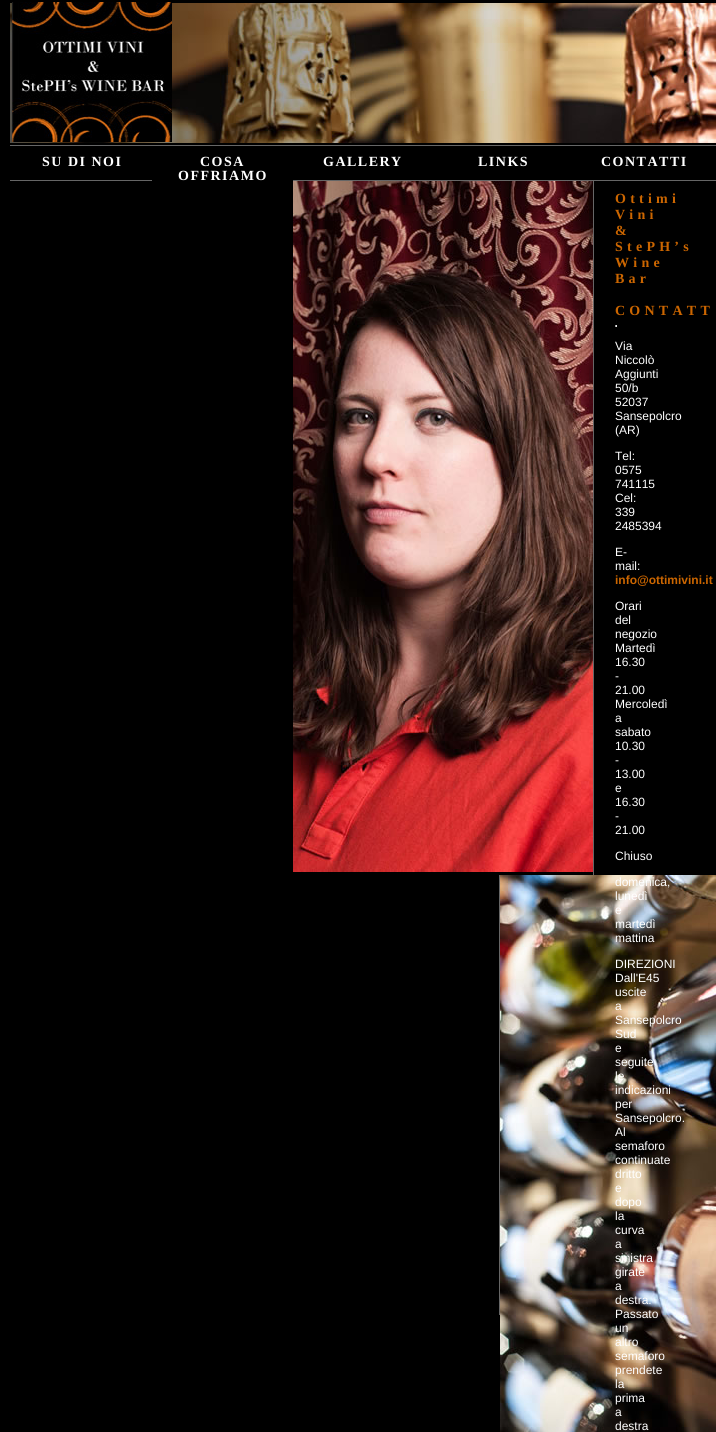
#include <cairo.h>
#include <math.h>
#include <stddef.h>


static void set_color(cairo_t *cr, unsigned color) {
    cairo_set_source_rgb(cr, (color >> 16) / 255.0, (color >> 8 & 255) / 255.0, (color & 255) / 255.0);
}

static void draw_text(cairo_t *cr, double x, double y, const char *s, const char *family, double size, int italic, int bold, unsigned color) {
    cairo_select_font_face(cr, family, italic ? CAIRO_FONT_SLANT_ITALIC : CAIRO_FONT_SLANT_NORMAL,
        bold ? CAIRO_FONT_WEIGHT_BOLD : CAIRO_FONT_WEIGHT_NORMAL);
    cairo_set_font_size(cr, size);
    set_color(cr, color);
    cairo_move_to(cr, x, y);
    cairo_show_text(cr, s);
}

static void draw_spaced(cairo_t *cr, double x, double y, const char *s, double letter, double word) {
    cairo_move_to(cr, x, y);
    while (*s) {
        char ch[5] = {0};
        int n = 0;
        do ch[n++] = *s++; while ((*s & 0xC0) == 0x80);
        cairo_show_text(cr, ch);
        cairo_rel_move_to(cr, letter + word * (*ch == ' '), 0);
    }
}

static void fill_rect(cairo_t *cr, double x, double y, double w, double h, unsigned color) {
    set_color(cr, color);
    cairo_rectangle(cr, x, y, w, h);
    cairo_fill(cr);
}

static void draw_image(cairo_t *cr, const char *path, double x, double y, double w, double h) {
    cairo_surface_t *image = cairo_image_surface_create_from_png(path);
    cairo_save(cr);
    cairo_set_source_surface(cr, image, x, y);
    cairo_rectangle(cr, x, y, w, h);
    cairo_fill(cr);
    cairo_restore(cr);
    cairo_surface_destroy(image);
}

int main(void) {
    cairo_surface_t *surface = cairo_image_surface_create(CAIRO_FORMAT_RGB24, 716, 1432);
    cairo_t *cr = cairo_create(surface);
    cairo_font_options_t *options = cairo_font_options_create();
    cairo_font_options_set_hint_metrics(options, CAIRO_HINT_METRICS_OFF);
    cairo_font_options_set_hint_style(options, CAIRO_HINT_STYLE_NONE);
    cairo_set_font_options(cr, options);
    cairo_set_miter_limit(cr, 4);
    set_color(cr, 0x000000);
    cairo_paint(cr);
    draw_image(cr, "assets/img1.png", 10, 3, 706, 140);
    fill_rect(cr, 10, 145, 706, 1, 0x666666);
    draw_image(cr, "assets/img2.png", 12, 2, 160, 140);
    fill_rect(cr, 10, 180, 706, 1, 0x666666);
    cairo_select_font_face(cr, "Liberation Serif", CAIRO_FONT_SLANT_NORMAL, CAIRO_FONT_WEIGHT_BOLD);
    cairo_set_font_size(cr, 14);
    set_color(cr, 0xFFFFFF);
    draw_spaced(cr, 42, 166, "SU DI NOI", 1.5, 0);
    fill_rect(cr, 152, 180, 141, 1, 0x000000);
    set_color(cr, 0xFFFFFF);
    draw_spaced(cr, 200, 166, "COSA", 1.5, 0);
    draw_spaced(cr, 178, 180, "OFFRIAMO", 1.5, 0);
    draw_spaced(cr, 323, 166, "GALLERY", 1.5, 0);
    draw_spaced(cr, 478, 166, "LINKS", 1.5, 0);
    draw_spaced(cr, 601, 166, "CONTATTI", 1.5, 0);
    fill_rect(cr, 593, 181, 1, 694, 0x666666);
    draw_image(cr, "assets/img3.png", 293, 181, 300, 691);
    set_color(cr, 0xCC6600);
    draw_spaced(cr, 615, 203, "Ottimi", 4.25, 0);
    draw_spaced(cr, 615, 219, "Vini", 4.25, 0);
    draw_spaced(cr, 615, 235, "&", 4.25, 0);
    draw_spaced(cr, 615, 251, "StePH’s", 4.25, 0);
    draw_spaced(cr, 615, 267, "Wine", 4.25, 0);
    draw_spaced(cr, 615, 283, "Bar", 4.25, 0);
    draw_spaced(cr, 615, 315, "CONTATT", 4.25, 0);
    fill_rect(cr, 616, 325, 1, 2, 0xEEEEEE);
    fill_rect(cr, 615, 326, 2, 1, 0xEEEEEE);
    fill_rect(cr, 615, 325, 1, 2, 0x9F9F9F);
    draw_text(cr, 615, 350, "Via", "Liberation Sans", 12, 0, 0, 0xFFFFFF);
    draw_text(cr, 615, 364, "Niccolò", "Liberation Sans", 12, 0, 0, 0xFFFFFF);
    draw_text(cr, 615, 378, "Aggiunti", "Liberation Sans", 12, 0, 0, 0xFFFFFF);
    draw_text(cr, 615, 392, "50/b", "Liberation Sans", 12, 0, 0, 0xFFFFFF);
    draw_text(cr, 615, 406, "52037", "Liberation Sans", 12, 0, 0, 0xFFFFFF);
    draw_text(cr, 615, 420, "Sansepolcro", "Liberation Sans", 12, 0, 0, 0xFFFFFF);
    draw_text(cr, 615, 434, "(AR)", "Liberation Sans", 12, 0, 0, 0xFFFFFF);
    draw_text(cr, 615, 460, "Tel:", "Liberation Sans", 12, 0, 0, 0xFFFFFF);
    draw_text(cr, 615, 474, "0575", "Liberation Sans", 12, 0, 0, 0xFFFFFF);
    draw_text(cr, 615, 488, "741115", "Liberation Sans", 12, 0, 0, 0xFFFFFF);
    draw_text(cr, 615, 502, "Cel:", "Liberation Sans", 12, 0, 0, 0xFFFFFF);
    draw_text(cr, 615, 516, "339", "Liberation Sans", 12, 0, 0, 0xFFFFFF);
    draw_text(cr, 615, 530, "2485394", "Liberation Sans", 12, 0, 0, 0xFFFFFF);
    draw_text(cr, 615, 556, "E-", "Liberation Sans", 12, 0, 0, 0xFFFFFF);
    draw_text(cr, 615, 570, "mail:", "Liberation Sans", 12, 0, 0, 0xFFFFFF);
    draw_text(cr, 615, 584, "info@ottimivini.it", "Liberation Sans", 12, 0, 1, 0xCC6600);
    draw_text(cr, 615, 610, "Orari", "Liberation Sans", 12, 0, 0, 0xFFFFFF);
    draw_text(cr, 615, 624, "del", "Liberation Sans", 12, 0, 0, 0xFFFFFF);
    draw_text(cr, 615, 638, "negozio", "Liberation Sans", 12, 0, 0, 0xFFFFFF);
    draw_text(cr, 615, 652, "Martedì", "Liberation Sans", 12, 0, 0, 0xFFFFFF);
    draw_text(cr, 615, 666, "16.30", "Liberation Sans", 12, 0, 0, 0xFFFFFF);
    draw_text(cr, 615, 680, "-", "Liberation Sans", 12, 0, 0, 0xFFFFFF);
    draw_text(cr, 615, 694, "21.00", "Liberation Sans", 12, 0, 0, 0xFFFFFF);
    draw_text(cr, 615, 708, "Mercoledì", "Liberation Sans", 12, 0, 0, 0xFFFFFF);
    draw_text(cr, 615, 722, "a", "Liberation Sans", 12, 0, 0, 0xFFFFFF);
    draw_text(cr, 615, 736, "sabato", "Liberation Sans", 12, 0, 0, 0xFFFFFF);
    draw_text(cr, 615, 750, "10.30", "Liberation Sans", 12, 0, 0, 0xFFFFFF);
    draw_text(cr, 615, 764, "-", "Liberation Sans", 12, 0, 0, 0xFFFFFF);
    draw_text(cr, 615, 778, "13.00", "Liberation Sans", 12, 0, 0, 0xFFFFFF);
    draw_text(cr, 615, 792, "e", "Liberation Sans", 12, 0, 0, 0xFFFFFF);
    draw_text(cr, 615, 806, "16.30", "Liberation Sans", 12, 0, 0, 0xFFFFFF);
    draw_text(cr, 615, 820, "-", "Liberation Sans", 12, 0, 0, 0xFFFFFF);
    draw_text(cr, 615, 834, "21.00", "Liberation Sans", 12, 0, 0, 0xFFFFFF);
    draw_text(cr, 615, 860, "Chiuso", "Liberation Sans", 12, 0, 0, 0xFFFFFF);
    draw_image(cr, "assets/img4.png", 500, 875, 216, 557);
    draw_text(cr, 615, 886, "domenica,", "Liberation Sans", 12, 0, 0, 0xFFFFFF);
    draw_text(cr, 615, 900, "lunedì", "Liberation Sans", 12, 0, 0, 0xFFFFFF);
    draw_text(cr, 615, 914, "e", "Liberation Sans", 12, 0, 0, 0xFFFFFF);
    draw_text(cr, 615, 928, "martedì", "Liberation Sans", 12, 0, 0, 0xFFFFFF);
    draw_text(cr, 615, 942, "mattina", "Liberation Sans", 12, 0, 0, 0xFFFFFF);
    draw_text(cr, 615, 968, "DIREZIONI", "Liberation Sans", 12, 0, 0, 0xFFFFFF);
    draw_text(cr, 615, 982, "Dall'E45", "Liberation Sans", 12, 0, 0, 0xFFFFFF);
    draw_text(cr, 615, 996, "uscite", "Liberation Sans", 12, 0, 0, 0xFFFFFF);
    draw_text(cr, 615, 1010, "a", "Liberation Sans", 12, 0, 0, 0xFFFFFF);
    draw_text(cr, 615, 1024, "Sansepolcro", "Liberation Sans", 12, 0, 0, 0xFFFFFF);
    draw_text(cr, 615, 1038, "Sud", "Liberation Sans", 12, 0, 0, 0xFFFFFF);
    draw_text(cr, 615, 1052, "e", "Liberation Sans", 12, 0, 0, 0xFFFFFF);
    draw_text(cr, 615, 1066, "seguite", "Liberation Sans", 12, 0, 0, 0xFFFFFF);
    draw_text(cr, 615, 1080, "le", "Liberation Sans", 12, 0, 0, 0xFFFFFF);
    draw_text(cr, 615, 1094, "indicazioni", "Liberation Sans", 12, 0, 0, 0xFFFFFF);
    draw_text(cr, 615, 1108, "per", "Liberation Sans", 12, 0, 0, 0xFFFFFF);
    draw_text(cr, 615, 1122, "Sansepolcro.", "Liberation Sans", 12, 0, 0, 0xFFFFFF);
    draw_text(cr, 615, 1136, "Al", "Liberation Sans", 12, 0, 0, 0xFFFFFF);
    draw_text(cr, 615, 1150, "semaforo", "Liberation Sans", 12, 0, 0, 0xFFFFFF);
    draw_text(cr, 615, 1164, "continuate", "Liberation Sans", 12, 0, 0, 0xFFFFFF);
    draw_text(cr, 615, 1178, "dritto", "Liberation Sans", 12, 0, 0, 0xFFFFFF);
    draw_text(cr, 615, 1192, "e", "Liberation Sans", 12, 0, 0, 0xFFFFFF);
    draw_text(cr, 615, 1206, "dopo", "Liberation Sans", 12, 0, 0, 0xFFFFFF);
    draw_text(cr, 615, 1220, "la", "Liberation Sans", 12, 0, 0, 0xFFFFFF);
    draw_text(cr, 615, 1234, "curva", "Liberation Sans", 12, 0, 0, 0xFFFFFF);
    draw_text(cr, 615, 1248, "a", "Liberation Sans", 12, 0, 0, 0xFFFFFF);
    draw_text(cr, 615, 1262, "sinistra", "Liberation Sans", 12, 0, 0, 0xFFFFFF);
    draw_text(cr, 615, 1276, "girate", "Liberation Sans", 12, 0, 0, 0xFFFFFF);
    draw_text(cr, 615, 1290, "a", "Liberation Sans", 12, 0, 0, 0xFFFFFF);
    draw_text(cr, 615, 1304, "destra.", "Liberation Sans", 12, 0, 0, 0xFFFFFF);
    draw_text(cr, 615, 1318, "Passato", "Liberation Sans", 12, 0, 0, 0xFFFFFF);
    draw_text(cr, 615, 1332, "un", "Liberation Sans", 12, 0, 0, 0xFFFFFF);
    draw_text(cr, 615, 1346, "altro", "Liberation Sans", 12, 0, 0, 0xFFFFFF);
    draw_text(cr, 615, 1360, "semaforo", "Liberation Sans", 12, 0, 0, 0xFFFFFF);
    draw_text(cr, 615, 1374, "prendete", "Liberation Sans", 12, 0, 0, 0xFFFFFF);
    draw_text(cr, 615, 1388, "la", "Liberation Sans", 12, 0, 0, 0xFFFFFF);
    draw_text(cr, 615, 1402, "prima", "Liberation Sans", 12, 0, 0, 0xFFFFFF);
    draw_text(cr, 615, 1416, "a", "Liberation Sans", 12, 0, 0, 0xFFFFFF);
    draw_text(cr, 615, 1430, "destra", "Liberation Sans", 12, 0, 0, 0xFFFFFF);
    fill_rect(cr, 499, 875, 1, 440, 0x666666);
    cairo_surface_write_to_png(surface, "output.png");
    cairo_font_options_destroy(options);
    cairo_destroy(cr);
    cairo_surface_destroy(surface);
    return 0;
}
